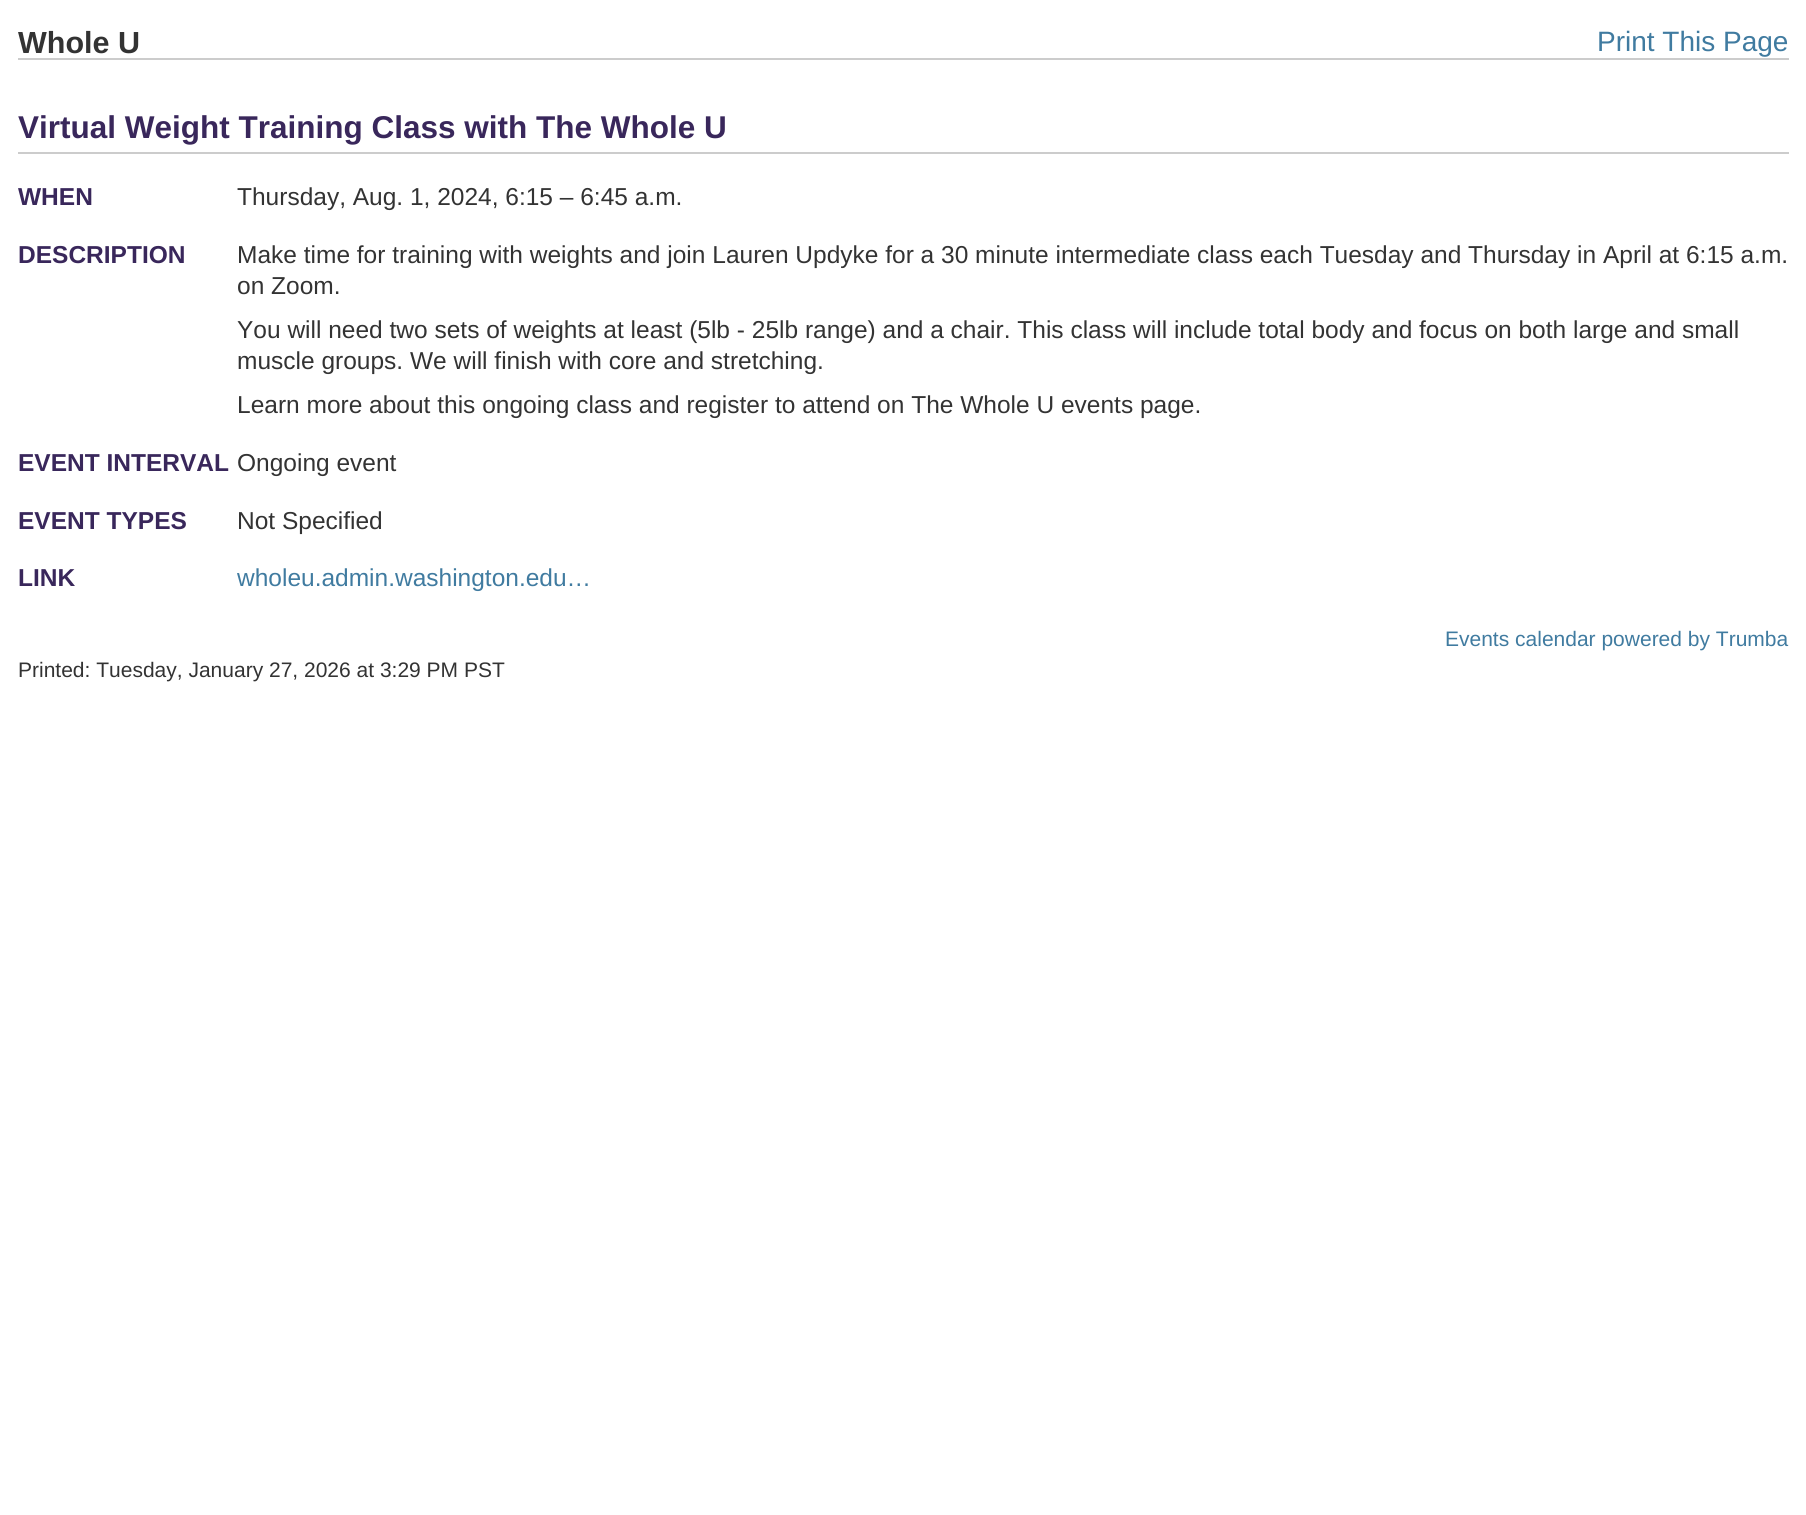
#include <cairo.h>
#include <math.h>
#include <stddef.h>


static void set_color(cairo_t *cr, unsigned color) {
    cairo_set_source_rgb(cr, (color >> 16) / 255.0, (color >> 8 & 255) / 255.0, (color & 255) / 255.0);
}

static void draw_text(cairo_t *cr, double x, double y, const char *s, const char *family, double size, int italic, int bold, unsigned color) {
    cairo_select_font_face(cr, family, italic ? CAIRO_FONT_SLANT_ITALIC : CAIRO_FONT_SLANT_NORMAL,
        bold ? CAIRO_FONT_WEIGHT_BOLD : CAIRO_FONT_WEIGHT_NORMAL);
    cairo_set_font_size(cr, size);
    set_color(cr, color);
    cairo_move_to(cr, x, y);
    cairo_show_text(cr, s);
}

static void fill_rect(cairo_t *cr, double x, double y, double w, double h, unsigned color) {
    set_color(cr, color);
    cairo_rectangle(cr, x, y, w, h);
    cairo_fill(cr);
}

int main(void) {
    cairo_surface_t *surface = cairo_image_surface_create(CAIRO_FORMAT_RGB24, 1806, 1515);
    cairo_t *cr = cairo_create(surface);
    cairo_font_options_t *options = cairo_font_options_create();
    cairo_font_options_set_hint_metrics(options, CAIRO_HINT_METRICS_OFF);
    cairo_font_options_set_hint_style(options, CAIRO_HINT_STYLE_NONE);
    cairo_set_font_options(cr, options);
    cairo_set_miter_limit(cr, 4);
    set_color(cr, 0xFFFFFF);
    cairo_paint(cr);
    fill_rect(cr, 18, 58, 1771, 2, 0xCCCCCC);
    draw_text(cr, 18, 53, "Whole U", "Liberation Sans", 30.5, 0, 1, 0x333333);
    draw_text(cr, 1597, 51, "Print This Page", "Liberation Sans", 28, 0, 0, 0x407BA0);
    fill_rect(cr, 18, 152, 1771, 2, 0xCCCCCC);
    draw_text(cr, 18, 138, "Virtual Weight Training Class with The Whole U", "Liberation Sans", 31.5, 0, 1, 0x39275B);
    draw_text(cr, 18, 205, "WHEN", "Liberation Sans", 24.5, 0, 1, 0x39275B);
    draw_text(cr, 237, 205, "Thursday, Aug. 1, 2024, 6:15 – 6:45 a.m.", "Liberation Sans", 24.5, 0, 0, 0x333333);
    draw_text(cr, 18, 263, "DESCRIPTION", "Liberation Sans", 24.5, 0, 1, 0x39275B);
    draw_text(cr, 237, 263, "Make time for training with weights and join Lauren Updyke for a 30 minute intermediate class each Tuesday and Thursday in April at 6:15 a.m.", "Liberation Sans", 24.5, 0, 0, 0x333333);
    draw_text(cr, 237, 294, "on Zoom.", "Liberation Sans", 24.5, 0, 0, 0x333333);
    draw_text(cr, 237, 338, "You will need two sets of weights at least (5lb - 25lb range) and a chair. This class will include total body and focus on both large and small", "Liberation Sans", 24.5, 0, 0, 0x333333);
    draw_text(cr, 237, 369, "muscle groups. We will finish with core and stretching.", "Liberation Sans", 24.5, 0, 0, 0x333333);
    draw_text(cr, 237, 413, "Learn more about this ongoing class and register to attend on The Whole U events page.", "Liberation Sans", 24.5, 0, 0, 0x333333);
    draw_text(cr, 18, 471, "EVENT INTERVAL", "Liberation Sans", 24.5, 0, 1, 0x39275B);
    draw_text(cr, 237, 471, "Ongoing event", "Liberation Sans", 24.5, 0, 0, 0x333333);
    draw_text(cr, 18, 529, "EVENT TYPES", "Liberation Sans", 24.5, 0, 1, 0x39275B);
    draw_text(cr, 237, 529, "Not Specified", "Liberation Sans", 24.5, 0, 0, 0x333333);
    draw_text(cr, 18, 586, "LINK", "Liberation Sans", 24.5, 0, 1, 0x39275B);
    draw_text(cr, 237, 586, "wholeu.admin.washington.edu…", "Liberation Sans", 24.5, 0, 0, 0x407BA0);
    draw_text(cr, 1445, 646, "Events calendar powered by Trumba", "Liberation Sans", 21, 0, 0, 0x407BA0);
    draw_text(cr, 18, 677, "Printed: Tuesday, January 27, 2026 at 3:29 PM PST", "Liberation Sans", 21, 0, 0, 0x333333);
    cairo_surface_write_to_png(surface, "output.png");
    cairo_font_options_destroy(options);
    cairo_destroy(cr);
    cairo_surface_destroy(surface);
    return 0;
}
